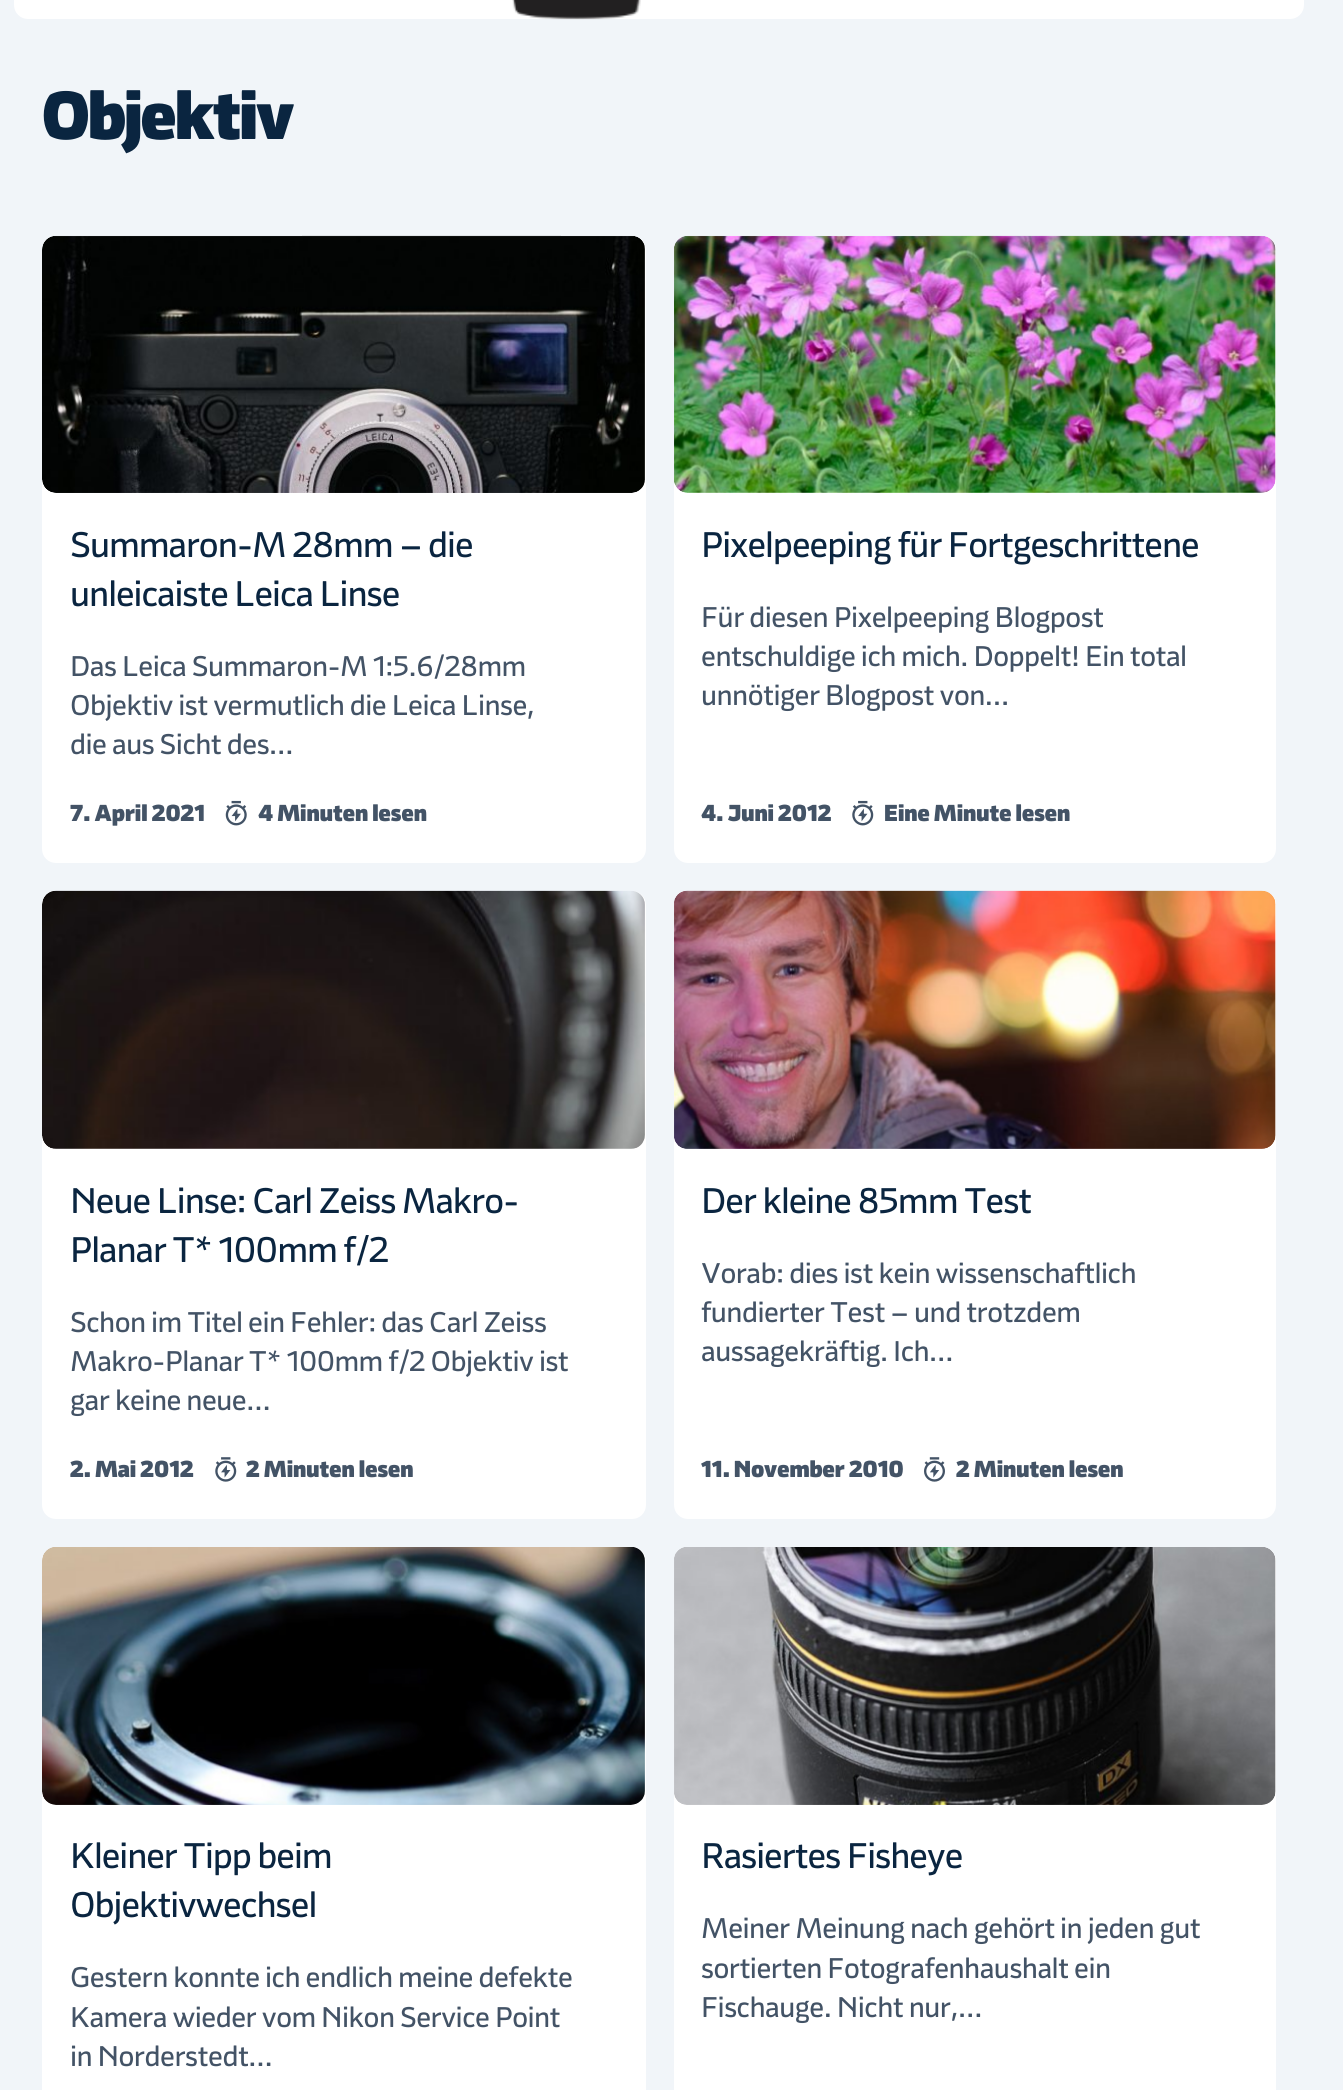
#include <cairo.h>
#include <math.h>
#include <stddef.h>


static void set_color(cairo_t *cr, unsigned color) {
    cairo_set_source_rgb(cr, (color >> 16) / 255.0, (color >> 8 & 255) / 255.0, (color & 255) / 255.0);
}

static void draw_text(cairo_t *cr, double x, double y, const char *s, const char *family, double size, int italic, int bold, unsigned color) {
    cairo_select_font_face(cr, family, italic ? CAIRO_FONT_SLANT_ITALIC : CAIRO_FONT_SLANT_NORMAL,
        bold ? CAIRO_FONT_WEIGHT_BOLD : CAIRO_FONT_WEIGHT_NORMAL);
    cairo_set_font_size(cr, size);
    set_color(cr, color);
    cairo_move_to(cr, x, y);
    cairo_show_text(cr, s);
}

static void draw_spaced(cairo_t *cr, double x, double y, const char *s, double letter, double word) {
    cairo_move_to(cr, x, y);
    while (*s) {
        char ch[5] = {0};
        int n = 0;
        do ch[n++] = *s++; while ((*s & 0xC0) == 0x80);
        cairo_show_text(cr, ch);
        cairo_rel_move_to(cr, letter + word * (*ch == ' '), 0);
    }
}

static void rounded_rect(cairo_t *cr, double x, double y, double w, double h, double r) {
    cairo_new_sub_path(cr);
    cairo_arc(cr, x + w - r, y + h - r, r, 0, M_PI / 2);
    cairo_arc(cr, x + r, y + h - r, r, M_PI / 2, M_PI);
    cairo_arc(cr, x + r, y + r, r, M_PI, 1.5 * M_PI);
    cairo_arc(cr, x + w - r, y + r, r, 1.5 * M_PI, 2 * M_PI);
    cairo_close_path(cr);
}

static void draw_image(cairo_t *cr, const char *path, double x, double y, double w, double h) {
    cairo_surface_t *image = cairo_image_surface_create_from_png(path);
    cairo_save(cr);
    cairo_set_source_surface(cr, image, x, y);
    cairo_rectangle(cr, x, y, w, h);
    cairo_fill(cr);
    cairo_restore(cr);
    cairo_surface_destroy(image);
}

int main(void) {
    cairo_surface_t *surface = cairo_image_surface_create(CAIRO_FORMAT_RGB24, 1343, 2090);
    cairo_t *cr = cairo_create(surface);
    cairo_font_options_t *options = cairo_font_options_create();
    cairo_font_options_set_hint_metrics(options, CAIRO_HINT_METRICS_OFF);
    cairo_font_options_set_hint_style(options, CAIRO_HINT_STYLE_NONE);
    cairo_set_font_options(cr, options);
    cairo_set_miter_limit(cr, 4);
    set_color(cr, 0xF1F5F9);
    cairo_paint(cr);
    set_color(cr, 0xFFFFFF);
    rounded_rect(cr, 14, -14, 1290, 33, 14);
    cairo_fill(cr);
    draw_image(cr, "assets/img1.png", 512, 0, 129, 20);
    cairo_select_font_face(cr, "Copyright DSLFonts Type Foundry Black", CAIRO_FONT_SLANT_NORMAL, CAIRO_FONT_WEIGHT_NORMAL);
    cairo_set_font_size(cr, 66.5);
    set_color(cr, 0x0A2540);
    draw_spaced(cr, 42, 139, "Objektiv", -2, 0);
    set_color(cr, 0xFFFFFF);
    rounded_rect(cr, 42, 236, 604, 627, 14);
    cairo_fill(cr);
    draw_image(cr, "assets/img2.png", 42, 235, 603, 258);
    cairo_select_font_face(cr, "Copyright DSLFonts Type Foundry Medium", CAIRO_FONT_SLANT_NORMAL, CAIRO_FONT_WEIGHT_NORMAL);
    cairo_set_font_size(cr, 35);
    set_color(cr, 0x0A2540);
    draw_spaced(cr, 70, 557, "Summaron-M 28mm – die", -1.05, 0);
    draw_spaced(cr, 70, 606, "unleicaiste Leica Linse", -1.05, 0);
    cairo_set_font_size(cr, 28);
    set_color(cr, 0x435366);
    draw_spaced(cr, 70, 676, "Das Leica Summaron-M 1:5.6/28mm", -0.55, 0);
    draw_spaced(cr, 70, 715, "Objektiv ist vermutlich die Leica Linse,", -0.55, 0);
    draw_spaced(cr, 70, 754, "die aus Sicht des…", -0.55, 0);
    draw_text(cr, 70, 821, "7. April 2021", "Copyright DSLFonts Type Foundry Black", 22.75, 0, 0, 0x435366);
    draw_image(cr, "assets/img3.png", 225, 800, 22, 26);
    draw_text(cr, 258, 821, "4 Minuten lesen", "Copyright DSLFonts Type Foundry Black", 22.75, 0, 0, 0x435366);
    set_color(cr, 0xFFFFFF);
    rounded_rect(cr, 674, 236, 602, 627, 14);
    cairo_fill(cr);
    draw_image(cr, "assets/img4.png", 674, 235, 602, 258);
    cairo_select_font_face(cr, "Copyright DSLFonts Type Foundry Medium", CAIRO_FONT_SLANT_NORMAL, CAIRO_FONT_WEIGHT_NORMAL);
    cairo_set_font_size(cr, 35);
    set_color(cr, 0x0A2540);
    draw_spaced(cr, 701, 557, "Pixelpeeping für Fortgeschrittene", -1.05, 0);
    cairo_set_font_size(cr, 28);
    set_color(cr, 0x435366);
    draw_spaced(cr, 701, 627, "Für diesen Pixelpeeping Blogpost", -0.55, 0);
    draw_spaced(cr, 701, 666, "entschuldige ich mich. Doppelt! Ein total", -0.55, 0);
    draw_spaced(cr, 701, 705, "unnötiger Blogpost von…", -0.55, 0);
    draw_text(cr, 701, 821, "4. Juni 2012", "Copyright DSLFonts Type Foundry Black", 22.75, 0, 0, 0x435366);
    draw_image(cr, "assets/img5.png", 852, 800, 22, 26);
    draw_text(cr, 884, 821, "Eine Minute lesen", "Copyright DSLFonts Type Foundry Black", 22.75, 0, 0, 0x435366);
    set_color(cr, 0xFFFFFF);
    rounded_rect(cr, 42, 891, 604, 628, 14);
    cairo_fill(cr);
    draw_image(cr, "assets/img6.png", 42, 890, 603, 259);
    cairo_select_font_face(cr, "Copyright DSLFonts Type Foundry Medium", CAIRO_FONT_SLANT_NORMAL, CAIRO_FONT_WEIGHT_NORMAL);
    cairo_set_font_size(cr, 35);
    set_color(cr, 0x0A2540);
    draw_spaced(cr, 70, 1213, "Neue Linse: Carl Zeiss Makro-", -1.05, 0);
    draw_spaced(cr, 70, 1262, "Planar T* 100mm f/2", -1.05, 0);
    cairo_set_font_size(cr, 28);
    set_color(cr, 0x435366);
    draw_spaced(cr, 70, 1332, "Schon im Titel ein Fehler: das Carl Zeiss", -0.55, 0);
    draw_spaced(cr, 70, 1371, "Makro-Planar T* 100mm f/2 Objektiv ist", -0.55, 0);
    draw_spaced(cr, 70, 1410, "gar keine neue…", -0.55, 0);
    draw_text(cr, 70, 1477, "2. Mai 2012", "Copyright DSLFonts Type Foundry Black", 22.75, 0, 0, 0x435366);
    draw_image(cr, "assets/img7.png", 215, 1457, 22, 25);
    draw_text(cr, 246, 1477, "2 Minuten lesen", "Copyright DSLFonts Type Foundry Black", 22.75, 0, 0, 0x435366);
    set_color(cr, 0xFFFFFF);
    rounded_rect(cr, 674, 891, 602, 628, 14);
    cairo_fill(cr);
    draw_image(cr, "assets/img8.png", 674, 890, 602, 259);
    cairo_select_font_face(cr, "Copyright DSLFonts Type Foundry Medium", CAIRO_FONT_SLANT_NORMAL, CAIRO_FONT_WEIGHT_NORMAL);
    cairo_set_font_size(cr, 35);
    set_color(cr, 0x0A2540);
    draw_spaced(cr, 701, 1213, "Der kleine 85mm Test", -1.05, 0);
    cairo_set_font_size(cr, 28);
    set_color(cr, 0x435366);
    draw_spaced(cr, 701, 1283, "Vorab: dies ist kein wissenschaftlich", -0.55, 0);
    draw_spaced(cr, 701, 1322, "fundierter Test – und trotzdem", -0.55, 0);
    draw_spaced(cr, 701, 1361, "aussagekräftig. Ich…", -0.55, 0);
    draw_text(cr, 701, 1477, "11. November 2010", "Copyright DSLFonts Type Foundry Black", 22.75, 0, 0, 0x435366);
    draw_image(cr, "assets/img9.png", 924, 1457, 21, 25);
    draw_text(cr, 956, 1477, "2 Minuten lesen", "Copyright DSLFonts Type Foundry Black", 22.75, 0, 0, 0x435366);
    set_color(cr, 0xFFFFFF);
    rounded_rect(cr, 42, 1547, 604, 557, 14);
    cairo_fill(cr);
    draw_image(cr, "assets/img10.png", 42, 1547, 603, 258);
    cairo_select_font_face(cr, "Copyright DSLFonts Type Foundry Medium", CAIRO_FONT_SLANT_NORMAL, CAIRO_FONT_WEIGHT_NORMAL);
    cairo_set_font_size(cr, 35);
    set_color(cr, 0x0A2540);
    draw_spaced(cr, 70, 1868, "Kleiner Tipp beim", -1.05, 0);
    draw_spaced(cr, 70, 1917, "Objektivwechsel", -1.05, 0);
    cairo_set_font_size(cr, 28);
    set_color(cr, 0x435366);
    draw_spaced(cr, 70, 1987, "Gestern konnte ich endlich meine defekte", -0.55, 0);
    draw_spaced(cr, 70, 2027, "Kamera wieder vom Nikon Service Point", -0.55, 0);
    draw_spaced(cr, 70, 2066, "in Norderstedt…", -0.55, 0);
    set_color(cr, 0xFFFFFF);
    rounded_rect(cr, 674, 1547, 602, 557, 14);
    cairo_fill(cr);
    draw_image(cr, "assets/img11.png", 674, 1547, 602, 258);
    cairo_set_font_size(cr, 35);
    set_color(cr, 0x0A2540);
    draw_spaced(cr, 701, 1868, "Rasiertes Fisheye", -1.05, 0);
    cairo_set_font_size(cr, 28);
    set_color(cr, 0x435366);
    draw_spaced(cr, 701, 1938, "Meiner Meinung nach gehört in jeden gut", -0.55, 0);
    draw_spaced(cr, 701, 1978, "sortierten Fotografenhaushalt ein", -0.55, 0);
    draw_spaced(cr, 701, 2017, "Fischauge. Nicht nur,…", -0.55, 0);
    cairo_surface_write_to_png(surface, "output.png");
    cairo_font_options_destroy(options);
    cairo_destroy(cr);
    cairo_surface_destroy(surface);
    return 0;
}
